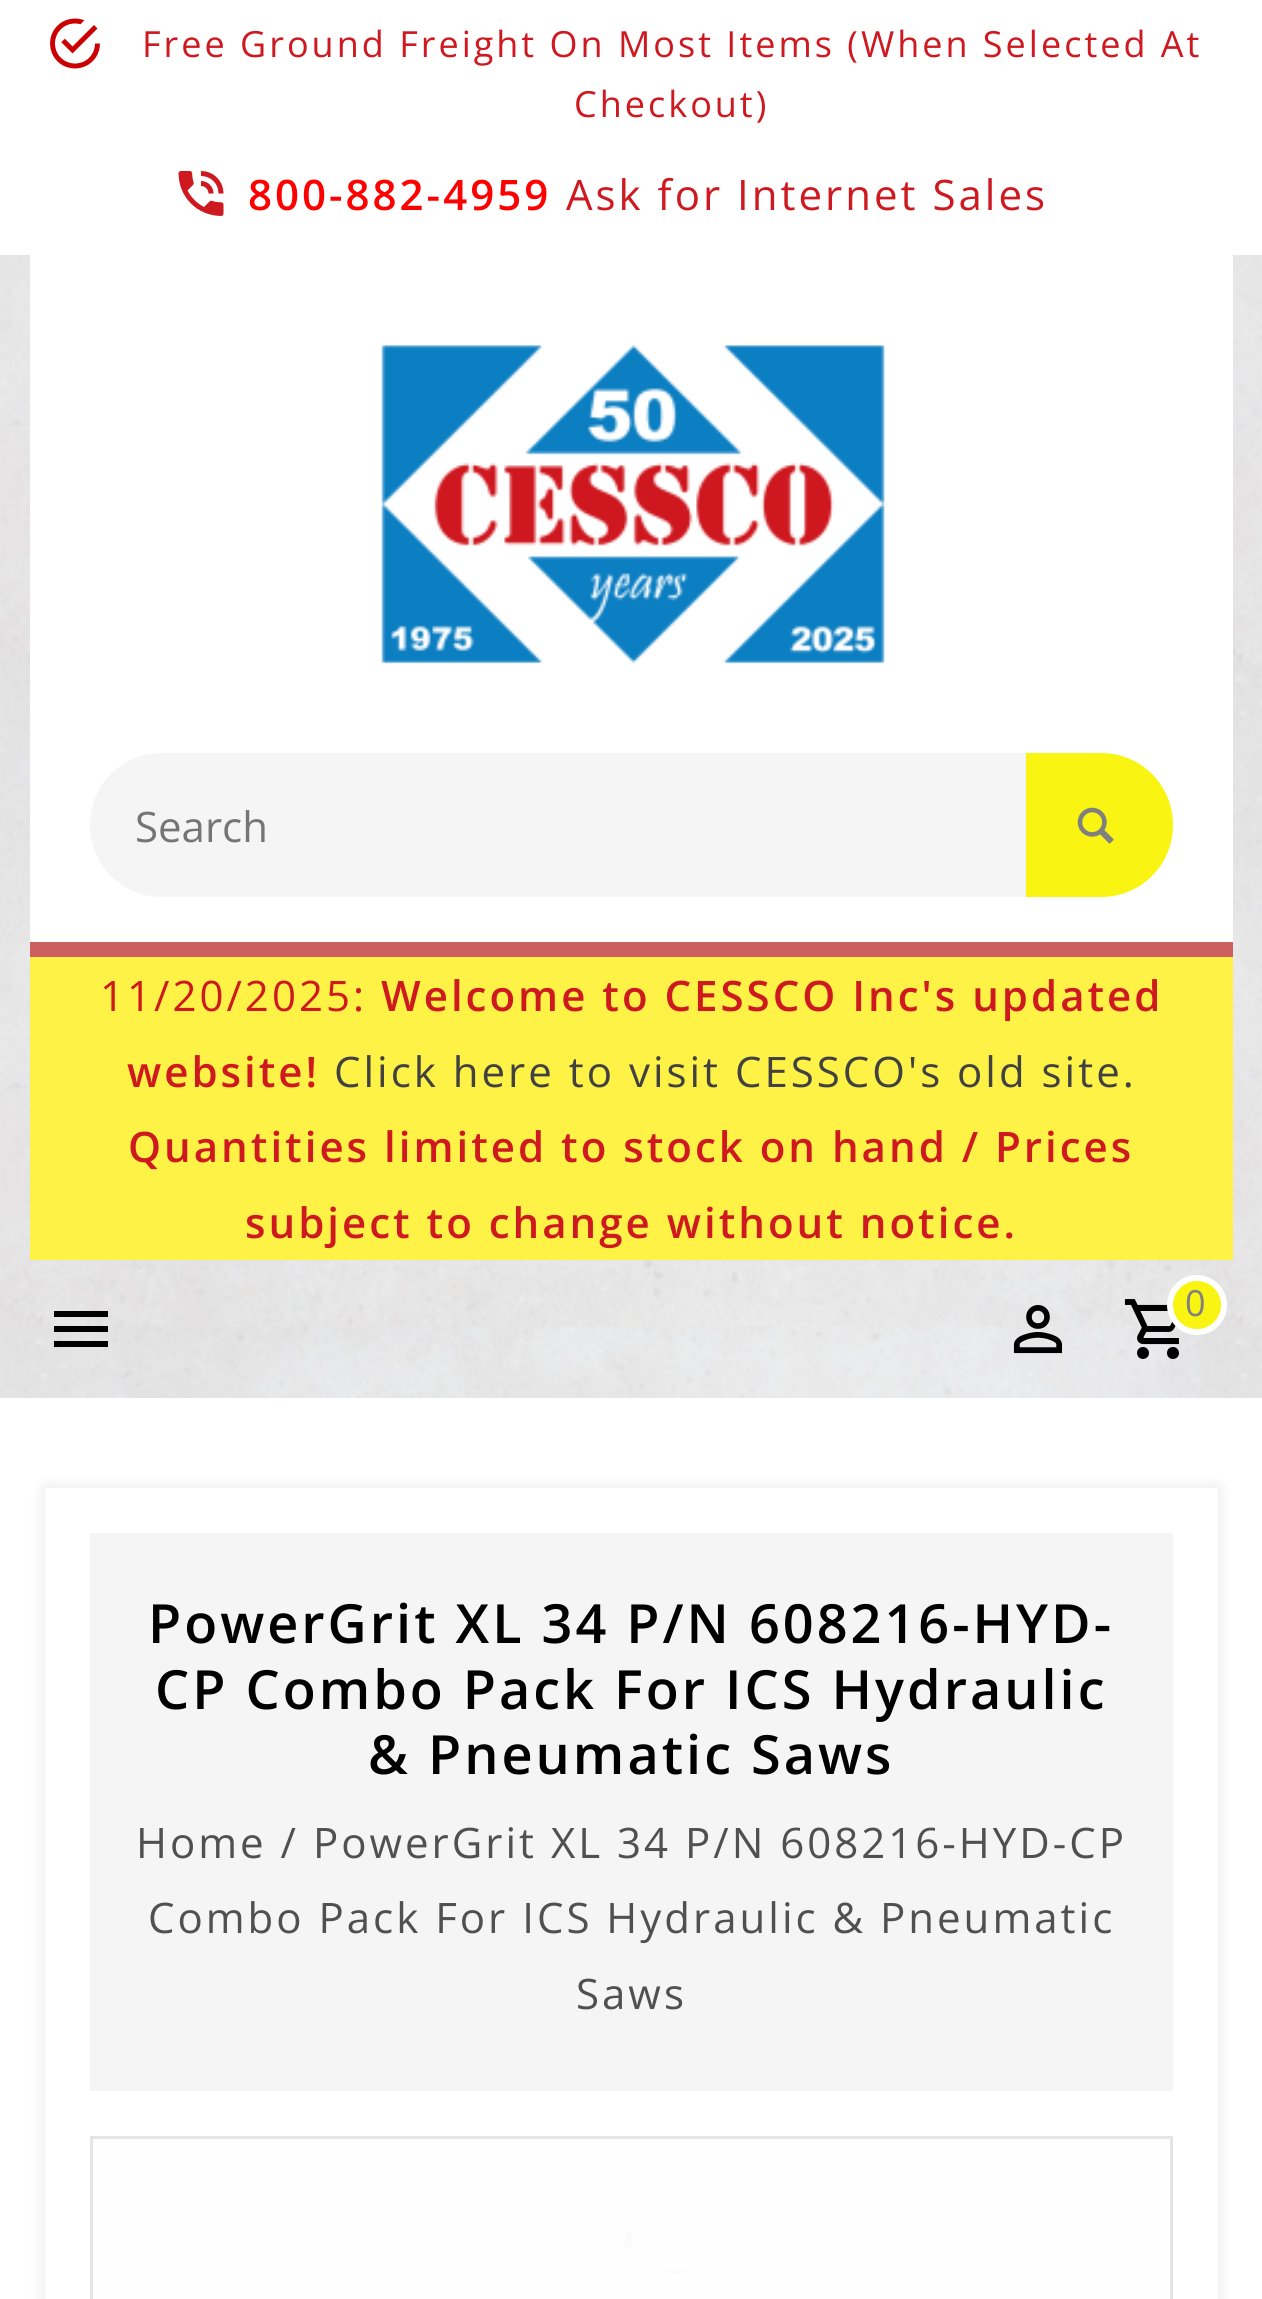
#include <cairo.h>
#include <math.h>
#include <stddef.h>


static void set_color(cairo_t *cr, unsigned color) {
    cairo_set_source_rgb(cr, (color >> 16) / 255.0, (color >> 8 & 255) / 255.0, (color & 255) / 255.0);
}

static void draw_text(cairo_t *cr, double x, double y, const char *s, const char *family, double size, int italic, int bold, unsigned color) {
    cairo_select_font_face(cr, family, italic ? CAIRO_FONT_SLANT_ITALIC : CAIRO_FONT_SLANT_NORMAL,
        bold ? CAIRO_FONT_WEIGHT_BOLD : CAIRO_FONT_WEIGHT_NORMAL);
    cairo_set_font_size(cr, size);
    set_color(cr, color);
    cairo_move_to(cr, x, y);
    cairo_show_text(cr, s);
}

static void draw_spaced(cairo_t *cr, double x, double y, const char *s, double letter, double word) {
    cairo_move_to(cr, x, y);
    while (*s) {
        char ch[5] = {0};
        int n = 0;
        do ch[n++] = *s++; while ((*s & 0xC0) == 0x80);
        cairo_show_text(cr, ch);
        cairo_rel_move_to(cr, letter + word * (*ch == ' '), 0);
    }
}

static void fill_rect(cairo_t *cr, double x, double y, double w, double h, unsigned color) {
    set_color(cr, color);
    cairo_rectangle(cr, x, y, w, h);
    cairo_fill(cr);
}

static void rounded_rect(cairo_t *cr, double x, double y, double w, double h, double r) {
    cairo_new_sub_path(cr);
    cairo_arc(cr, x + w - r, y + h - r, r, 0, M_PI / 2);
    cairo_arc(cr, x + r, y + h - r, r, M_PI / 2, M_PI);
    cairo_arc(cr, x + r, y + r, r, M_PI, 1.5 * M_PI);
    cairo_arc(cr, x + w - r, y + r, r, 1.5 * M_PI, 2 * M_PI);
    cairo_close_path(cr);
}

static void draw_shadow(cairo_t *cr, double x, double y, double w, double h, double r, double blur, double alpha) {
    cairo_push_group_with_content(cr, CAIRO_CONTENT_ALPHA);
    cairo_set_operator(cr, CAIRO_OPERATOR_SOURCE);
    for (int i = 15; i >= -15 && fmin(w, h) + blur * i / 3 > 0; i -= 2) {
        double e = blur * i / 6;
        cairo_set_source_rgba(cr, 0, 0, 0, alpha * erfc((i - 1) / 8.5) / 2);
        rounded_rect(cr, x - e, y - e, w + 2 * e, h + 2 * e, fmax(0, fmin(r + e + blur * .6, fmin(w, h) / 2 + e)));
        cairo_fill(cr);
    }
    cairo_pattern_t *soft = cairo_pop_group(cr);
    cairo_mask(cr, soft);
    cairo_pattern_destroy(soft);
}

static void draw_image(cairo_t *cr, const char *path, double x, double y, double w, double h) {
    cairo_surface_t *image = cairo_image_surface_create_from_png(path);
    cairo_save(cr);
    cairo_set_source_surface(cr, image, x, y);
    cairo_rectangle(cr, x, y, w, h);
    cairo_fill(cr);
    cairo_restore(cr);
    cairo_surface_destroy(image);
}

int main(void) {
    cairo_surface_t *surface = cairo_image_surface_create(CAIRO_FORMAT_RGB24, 1262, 2299);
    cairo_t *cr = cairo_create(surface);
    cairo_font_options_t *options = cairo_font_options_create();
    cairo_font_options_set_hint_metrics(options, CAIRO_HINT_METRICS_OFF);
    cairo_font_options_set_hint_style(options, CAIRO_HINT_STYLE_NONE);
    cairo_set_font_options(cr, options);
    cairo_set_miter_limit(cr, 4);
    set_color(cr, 0xFFFFFF);
    cairo_paint(cr);
    draw_image(cr, "assets/img1.png", 50, 18, 50, 51);
    cairo_select_font_face(cr, "Open Sans", CAIRO_FONT_SLANT_NORMAL, CAIRO_FONT_WEIGHT_NORMAL);
    cairo_set_font_size(cr, 36);
    set_color(cr, 0xCE1920);
    draw_spaced(cr, 142, 57, "Free Ground Freight On Most Items (When Selected At", 3, 0);
    draw_spaced(cr, 574, 117, "Checkout)", 3, 0);
    draw_image(cr, "assets/img2.png", 178, 171, 46, 45);
    cairo_select_font_face(cr, "Open Sans SemiBold", CAIRO_FONT_SLANT_NORMAL, CAIRO_FONT_WEIGHT_NORMAL);
    cairo_set_font_size(cr, 42);
    set_color(cr, 0xFF0000);
    draw_spaced(cr, 248, 210, "800-882-4959", 3, 0);
    cairo_select_font_face(cr, "Open Sans", CAIRO_FONT_SLANT_NORMAL, CAIRO_FONT_WEIGHT_NORMAL);
    set_color(cr, 0xCE1920);
    draw_spaced(cr, 566, 210, "Ask for Internet Sales", 3, 0);
    draw_image(cr, "assets/img3.png", 0, 255, 1262, 1143);
    fill_rect(cr, 30, 255, 1203, 687, 0xFFFFFF);
    fill_rect(cr, 30, 942, 1203, 15, 0xCC6060);
    draw_image(cr, "assets/img4.png", 381, 345, 504, 319);
    set_color(cr, 0xF5F5F5);
    cairo_new_path(cr);
    cairo_move_to(cr, 162, 753);
    cairo_line_to(cr, 1026, 753);
    cairo_line_to(cr, 1026, 897);
    cairo_line_to(cr, 162, 897);
    cairo_curve_to(cr, 122, 897, 90, 865, 90, 825);
    cairo_curve_to(cr, 90, 785, 122, 753, 162, 753);
    cairo_close_path(cr);
    cairo_fill(cr);
    draw_text(cr, 135, 842, "Search", "Open Sans", 42, 0, 0, 0x757575);
    set_color(cr, 0xF9F411);
    cairo_new_path(cr);
    cairo_move_to(cr, 1026, 753);
    cairo_line_to(cr, 1101, 753);
    cairo_curve_to(cr, 1141, 753, 1173, 785, 1173, 825);
    cairo_curve_to(cr, 1173, 865, 1141, 897, 1101, 897);
    cairo_line_to(cr, 1026, 897);
    cairo_close_path(cr);
    cairo_fill(cr);
    draw_image(cr, "assets/img5.png", 1077, 807, 37, 37);
    fill_rect(cr, 30, 957, 1203, 303, 0xFEF246);
    set_color(cr, 0xCE1920);
    draw_spaced(cr, 100, 1011, "11/20/2025:", 3, 0);
    cairo_select_font_face(cr, "Open Sans SemiBold", CAIRO_FONT_SLANT_NORMAL, CAIRO_FONT_WEIGHT_NORMAL);
    draw_spaced(cr, 381, 1011, "Welcome to CESSCO Inc's updated", 3, 0);
    draw_spaced(cr, 127, 1087, "website!", 3, 0);
    cairo_select_font_face(cr, "Open Sans", CAIRO_FONT_SLANT_NORMAL, CAIRO_FONT_WEIGHT_NORMAL);
    set_color(cr, 0x414141);
    draw_spaced(cr, 334, 1087, "Click here to visit CESSCO's old site.", 3, 0);
    cairo_select_font_face(cr, "Open Sans SemiBold", CAIRO_FONT_SLANT_NORMAL, CAIRO_FONT_WEIGHT_NORMAL);
    set_color(cr, 0xCE1920);
    draw_spaced(cr, 128, 1162, "Quantities limited to stock on hand / Prices", 3, 0);
    draw_spaced(cr, 245, 1238, "subject to change without notice.", 3, 0);
    set_color(cr, 0x000000);
    cairo_new_path(cr);
    cairo_move_to(cr, 54, 1311);
    cairo_line_to(cr, 108, 1311);
    cairo_line_to(cr, 108, 1317);
    cairo_line_to(cr, 54, 1317);
    cairo_close_path(cr);
    cairo_move_to(cr, 54, 1326);
    cairo_line_to(cr, 108, 1326);
    cairo_line_to(cr, 108, 1332);
    cairo_line_to(cr, 54, 1332);
    cairo_close_path(cr);
    cairo_move_to(cr, 54, 1341);
    cairo_line_to(cr, 108, 1341);
    cairo_line_to(cr, 108, 1347);
    cairo_line_to(cr, 54, 1347);
    cairo_close_path(cr);
    cairo_fill(cr);
    draw_image(cr, "assets/img6.png", 1013, 1305, 50, 49);
    draw_image(cr, "assets/img7.png", 1124, 1299, 55, 60);
    set_color(cr, 0xF9F411);
    cairo_arc(cr, 1197, 1305, 27, 0, 2 * M_PI);
    cairo_fill_preserve(cr);
    set_color(cr, 0xFFFFFF);
    cairo_set_line_width(cr, 6);
    cairo_stroke(cr);
    cairo_select_font_face(cr, "Open Sans", CAIRO_FONT_SLANT_NORMAL, CAIRO_FONT_WEIGHT_NORMAL);
    cairo_set_font_size(cr, 36);
    set_color(cr, 0x808080);
    draw_spaced(cr, 1185, 1316, "0", 3, 0);
    cairo_save(cr);
    cairo_set_fill_rule(cr, CAIRO_FILL_RULE_EVEN_ODD);
    cairo_new_path(cr);
    cairo_move_to(cr, 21, 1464);
    cairo_line_to(cr, 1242, 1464);
    cairo_line_to(cr, 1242, 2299);
    cairo_line_to(cr, 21, 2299);
    cairo_close_path(cr);
    cairo_move_to(cr, 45, 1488);
    cairo_line_to(cr, 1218, 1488);
    cairo_line_to(cr, 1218, 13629);
    cairo_line_to(cr, 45, 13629);
    cairo_close_path(cr);
    cairo_clip(cr);
    set_color(cr, 0x000000);
    draw_shadow(cr, 45, 1488, 1173, 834, 0, 7.5, 0.1);
    cairo_restore(cr);
    fill_rect(cr, 90, 1533, 1083, 558, 0xF5F5F5);
    cairo_select_font_face(cr, "Open Sans SemiBold", CAIRO_FONT_SLANT_NORMAL, CAIRO_FONT_WEIGHT_NORMAL);
    cairo_set_font_size(cr, 54);
    set_color(cr, 0x000000);
    draw_spaced(cr, 148, 1643, "PowerGrit XL 34 P/N 608216-HYD-", 3, 0);
    draw_spaced(cr, 155, 1709, "CP Combo Pack For ICS Hydraulic", 3, 0);
    draw_spaced(cr, 368, 1774, "& Pneumatic Saws", 3, 0);
    cairo_select_font_face(cr, "Open Sans", CAIRO_FONT_SLANT_NORMAL, CAIRO_FONT_WEIGHT_NORMAL);
    cairo_set_font_size(cr, 42);
    set_color(cr, 0x505050);
    draw_spaced(cr, 136, 1858, "Home / PowerGrit XL 34 P/N 608216-HYD-CP", 3, 0);
    draw_spaced(cr, 148, 1933, "Combo Pack For ICS Hydraulic & Pneumatic", 3, 0);
    draw_spaced(cr, 576, 2009, "Saws", 3, 0);
    cairo_rectangle(cr, 91.5, 2137.5, 1080, 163);
    set_color(cr, 0xE5E5E5);
    cairo_set_line_width(cr, 3);
    cairo_stroke(cr);
    draw_image(cr, "assets/img8.png", 93, 2139, 1077, 160);
    cairo_surface_write_to_png(surface, "output.png");
    cairo_font_options_destroy(options);
    cairo_destroy(cr);
    cairo_surface_destroy(surface);
    return 0;
}
